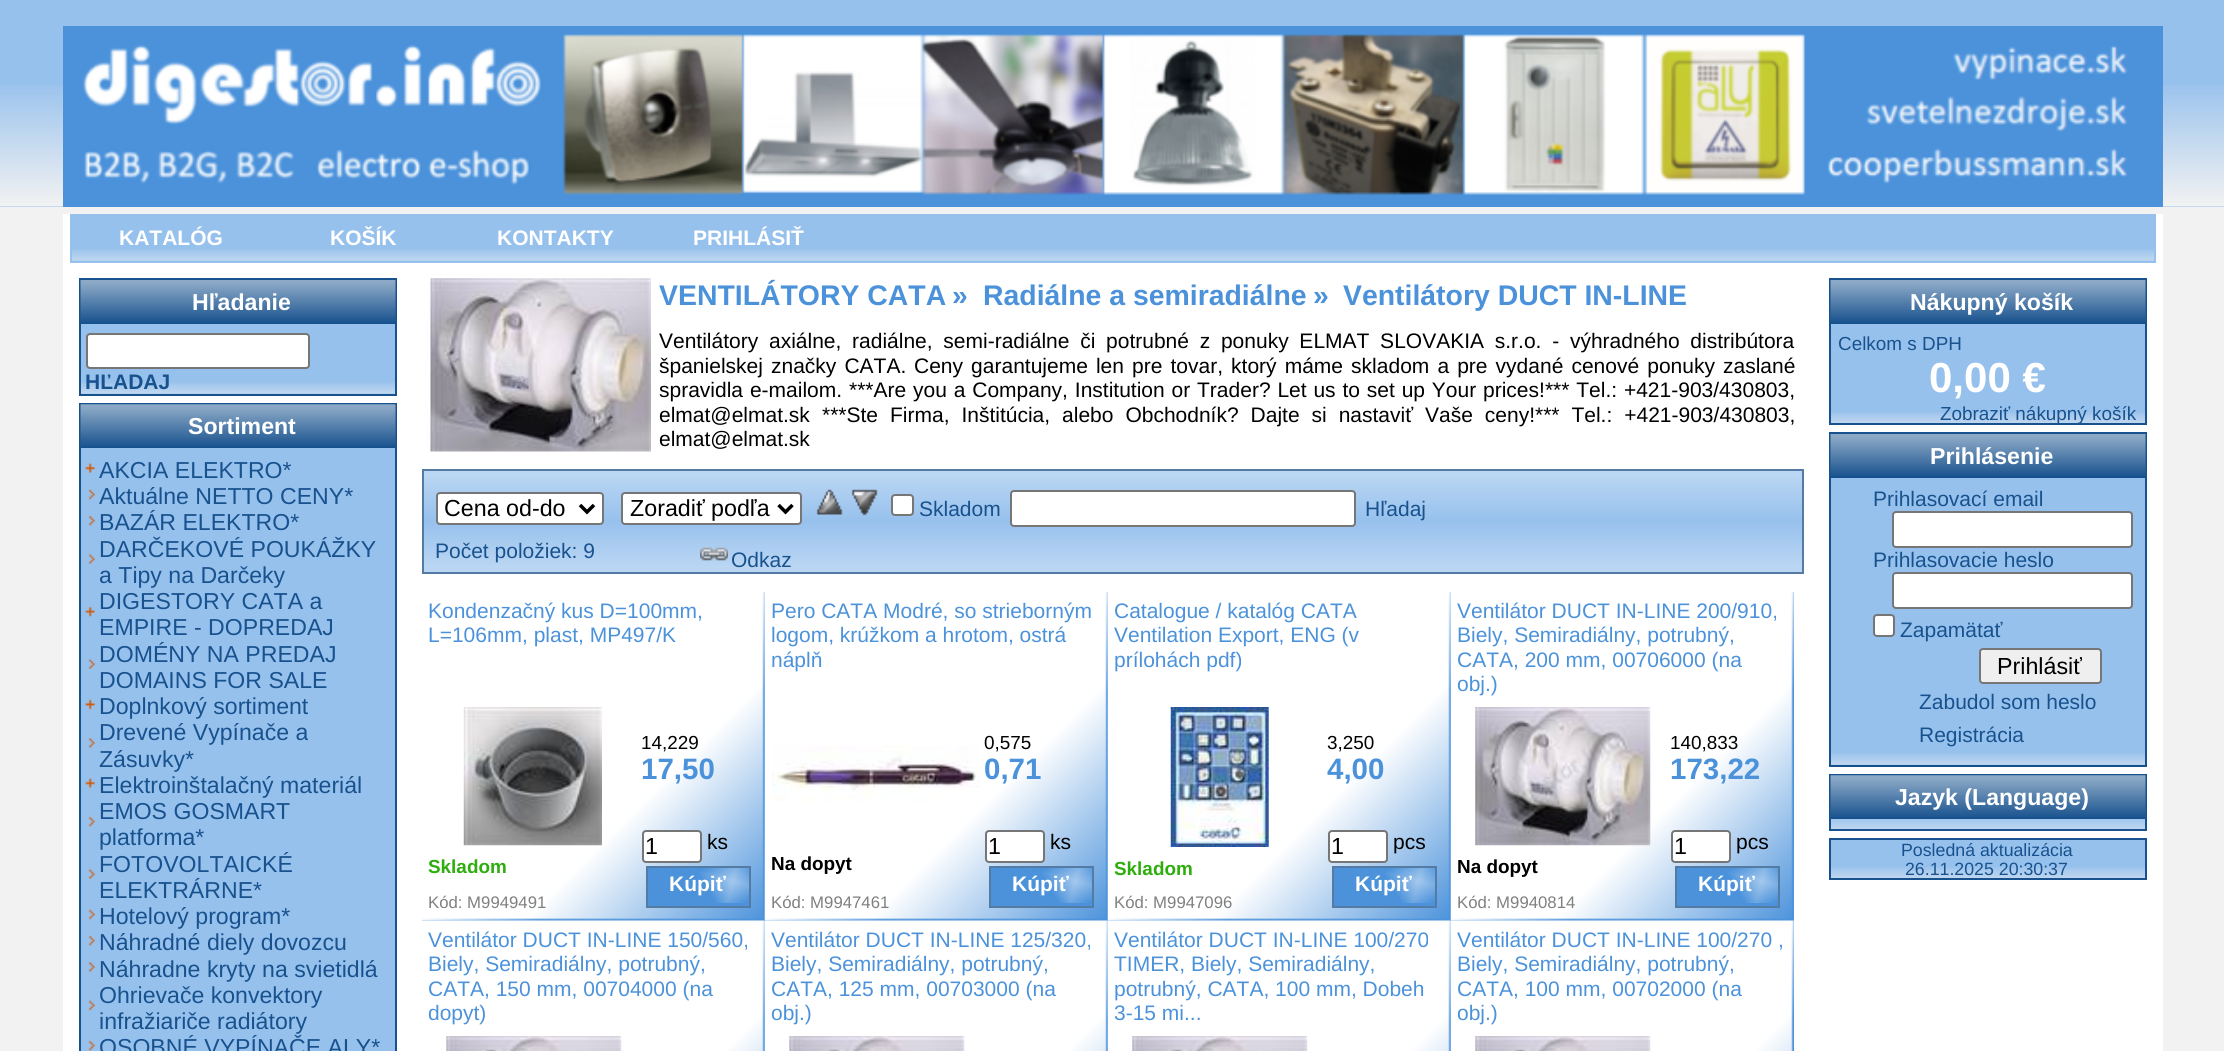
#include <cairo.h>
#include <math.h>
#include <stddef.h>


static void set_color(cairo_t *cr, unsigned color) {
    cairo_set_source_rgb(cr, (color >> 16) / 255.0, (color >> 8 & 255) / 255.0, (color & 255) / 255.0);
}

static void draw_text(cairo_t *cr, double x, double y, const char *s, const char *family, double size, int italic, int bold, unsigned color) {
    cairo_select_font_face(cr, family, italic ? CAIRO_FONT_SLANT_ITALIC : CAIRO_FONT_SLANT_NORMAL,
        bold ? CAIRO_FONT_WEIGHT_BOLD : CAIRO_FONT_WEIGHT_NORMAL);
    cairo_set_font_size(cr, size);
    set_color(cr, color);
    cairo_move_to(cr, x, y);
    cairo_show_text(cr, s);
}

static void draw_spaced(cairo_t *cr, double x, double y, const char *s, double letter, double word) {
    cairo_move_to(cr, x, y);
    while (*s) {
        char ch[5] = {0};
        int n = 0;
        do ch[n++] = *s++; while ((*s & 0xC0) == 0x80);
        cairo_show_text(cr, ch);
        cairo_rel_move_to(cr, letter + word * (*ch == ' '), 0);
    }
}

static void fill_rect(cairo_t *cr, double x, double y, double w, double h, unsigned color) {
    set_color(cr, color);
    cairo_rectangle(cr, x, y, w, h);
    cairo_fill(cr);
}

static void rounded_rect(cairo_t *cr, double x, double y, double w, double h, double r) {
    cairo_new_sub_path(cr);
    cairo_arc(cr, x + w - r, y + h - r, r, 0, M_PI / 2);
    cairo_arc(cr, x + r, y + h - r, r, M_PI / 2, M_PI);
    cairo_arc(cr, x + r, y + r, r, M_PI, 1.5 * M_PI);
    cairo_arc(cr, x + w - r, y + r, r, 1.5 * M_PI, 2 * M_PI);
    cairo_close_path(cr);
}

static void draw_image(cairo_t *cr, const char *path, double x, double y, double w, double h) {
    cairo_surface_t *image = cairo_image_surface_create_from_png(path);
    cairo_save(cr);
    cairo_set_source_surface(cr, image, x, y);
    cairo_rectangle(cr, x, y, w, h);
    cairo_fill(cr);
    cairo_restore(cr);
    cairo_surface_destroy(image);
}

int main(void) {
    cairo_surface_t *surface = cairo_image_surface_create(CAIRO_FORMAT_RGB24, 2224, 1051);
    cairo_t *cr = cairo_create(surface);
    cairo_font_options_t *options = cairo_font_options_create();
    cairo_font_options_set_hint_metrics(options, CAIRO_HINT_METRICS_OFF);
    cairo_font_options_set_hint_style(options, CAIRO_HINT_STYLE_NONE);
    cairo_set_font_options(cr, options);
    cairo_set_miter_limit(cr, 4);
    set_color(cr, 0xF2F2F2);
    cairo_paint(cr);
    fill_rect(cr, 0, 0, 2224, 207, 0x97C1ED);
    draw_image(cr, "assets/img1.png", 0, 85, 2224, 122);
    fill_rect(cr, 63, 26, 2100, 181, 0x4B92DB);
    draw_image(cr, "assets/img2.png", 83, 34, 2045, 161);
    fill_rect(cr, 63, 214, 2100, 837, 0xFFFFFF);
    fill_rect(cr, 72, 216, 2082, 45, 0x97C1ED);
    draw_image(cr, "assets/img3.png", 72, 249, 2082, 12);
    cairo_rectangle(cr, 71, 215, 2084, 47);
    cairo_stroke(cr);
    draw_text(cr, 119, 245, "KATALÓG", "Liberation Sans", 21, 0, 1, 0xFFFFFF);
    draw_text(cr, 330, 245, "KOŠÍK", "Liberation Sans", 21, 0, 1, 0xFFFFFF);
    draw_text(cr, 497, 245, "KONTAKTY", "Liberation Sans", 21, 0, 1, 0xFFFFFF);
    draw_text(cr, 693, 245, "PRIHLÁSIŤ", "Liberation Sans", 21, 0, 1, 0xFFFFFF);
    fill_rect(cr, 81, 324, 314, 70, 0x97C1ED);
    draw_image(cr, "assets/img4.png", 81, 382, 314, 12);
    cairo_rectangle(cr, 80, 279, 316, 116);
    set_color(cr, 0x18528E);
    cairo_stroke(cr);
    fill_rect(cr, 81, 280, 314, 44, 0x18528E);
    draw_image(cr, "assets/img5.png", 80, 280, 316, 42);
    draw_text(cr, 192, 310, "Hľadanie", "Liberation Sans", 23.1, 0, 1, 0xFFFFFF);
    rounded_rect(cr, 87, 334, 222, 34, 3);
    cairo_fill_preserve(cr);
    set_color(cr, 0x767676);
    cairo_stroke(cr);
    draw_text(cr, 85, 389, "HĽADAJ", "Liberation Sans", 21, 0, 1, 0x18528E);
    fill_rect(cr, 81, 448, 314, 603, 0x97C1ED);
    cairo_rectangle(cr, 80, 404, 316, 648);
    set_color(cr, 0x18528E);
    cairo_stroke(cr);
    fill_rect(cr, 81, 405, 314, 43, 0x18528E);
    draw_image(cr, "assets/img6.png", 80, 404, 316, 42);
    draw_text(cr, 188, 434, "Sortiment", "Liberation Sans", 23.1, 0, 1, 0xFFFFFF);
    draw_image(cr, "assets/img7.png", 85, 463, 10, 10);
    draw_text(cr, 99, 478, "AKCIA ELEKTRO*", "Liberation Sans", 23.1, 0, 0, 0x18528E);
    draw_image(cr, "assets/img8.png", 88, 489, 7, 11);
    draw_text(cr, 99, 504, "Aktuálne NETTO CENY*", "Liberation Sans", 23.1, 0, 0, 0x18528E);
    draw_image(cr, "assets/img9.png", 88, 515, 7, 11);
    draw_text(cr, 99, 530, "BAZÁR ELEKTRO*", "Liberation Sans", 23.1, 0, 0, 0x18528E);
    draw_image(cr, "assets/img10.png", 88, 554, 7, 10);
    draw_text(cr, 99, 557, "DARČEKOVÉ POUKÁŽKY", "Liberation Sans", 23.1, 0, 0, 0x18528E);
    draw_text(cr, 99, 583, "a Tipy na Darčeky", "Liberation Sans", 23.1, 0, 0, 0x18528E);
    draw_image(cr, "assets/img11.png", 85, 606, 10, 11);
    draw_text(cr, 99, 609, "DIGESTORY CATA a", "Liberation Sans", 23.1, 0, 0, 0x18528E);
    draw_text(cr, 99, 635, "EMPIRE - DOPREDAJ", "Liberation Sans", 23.1, 0, 0, 0x18528E);
    draw_image(cr, "assets/img10.png", 88, 659, 7, 10);
    draw_text(cr, 99, 662, "DOMÉNY NA PREDAJ", "Liberation Sans", 23.1, 0, 0, 0x18528E);
    draw_text(cr, 99, 688, "DOMAINS FOR SALE", "Liberation Sans", 23.1, 0, 0, 0x18528E);
    draw_image(cr, "assets/img12.png", 85, 699, 10, 11);
    draw_text(cr, 99, 714, "Doplnkový sortiment", "Liberation Sans", 23.1, 0, 0, 0x18528E);
    draw_image(cr, "assets/img13.png", 88, 738, 7, 10);
    draw_text(cr, 99, 740, "Drevené Vypínače a", "Liberation Sans", 23.1, 0, 0, 0x18528E);
    draw_text(cr, 99, 767, "Zásuvky*", "Liberation Sans", 23.1, 0, 0, 0x18528E);
    draw_image(cr, "assets/img7.png", 85, 778, 10, 10);
    draw_text(cr, 99, 793, "Elektroinštalačný materiál", "Liberation Sans", 23.1, 0, 0, 0x18528E);
    draw_image(cr, "assets/img9.png", 88, 816, 7, 11);
    draw_text(cr, 99, 819, "EMOS GOSMART", "Liberation Sans", 23.1, 0, 0, 0x18528E);
    draw_text(cr, 99, 845, "platforma*", "Liberation Sans", 23.1, 0, 0, 0x18528E);
    draw_image(cr, "assets/img10.png", 88, 869, 7, 10);
    draw_text(cr, 99, 872, "FOTOVOLTAICKÉ", "Liberation Sans", 23.1, 0, 0, 0x18528E);
    draw_text(cr, 99, 898, "ELEKTRÁRNE*", "Liberation Sans", 23.1, 0, 0, 0x18528E);
    draw_image(cr, "assets/img8.png", 88, 909, 7, 11);
    draw_text(cr, 99, 924, "Hotelový program*", "Liberation Sans", 23.1, 0, 0, 0x18528E);
    draw_image(cr, "assets/img9.png", 88, 935, 7, 11);
    draw_text(cr, 99, 950, "Náhradné diely dovozcu", "Liberation Sans", 23.1, 0, 0, 0x18528E);
    draw_image(cr, "assets/img13.png", 88, 962, 7, 10);
    draw_text(cr, 99, 977, "Náhradne kryty na svietidlá", "Liberation Sans", 23.1, 0, 0, 0x18528E);
    draw_image(cr, "assets/img8.png", 88, 1000, 7, 11);
    draw_text(cr, 99, 1003, "Ohrievače konvektory", "Liberation Sans", 23.1, 0, 0, 0x18528E);
    draw_text(cr, 99, 1029, "infražiariče radiátory", "Liberation Sans", 23.1, 0, 0, 0x18528E);
    draw_image(cr, "assets/img9.png", 88, 1040, 7, 11);
    draw_text(cr, 99, 1055, "OSOBNÉ VYPÍNAČE ALY*", "Liberation Sans", 23.1, 0, 0, 0x18528E);
    draw_image(cr, "assets/img14.png", 430, 278, 221, 174);
    draw_text(cr, 659, 305, "VENTILÁTORY CATA", "Liberation Sans", 28.4, 0, 1, 0x4B92DB);
    draw_text(cr, 952, 305, "»", "Liberation Sans", 28.4, 0, 1, 0x4B92DB);
    draw_text(cr, 983, 305, "Radiálne a semiradiálne", "Liberation Sans", 28.4, 0, 1, 0x4B92DB);
    draw_text(cr, 1313, 305, "»", "Liberation Sans", 28.4, 0, 1, 0x4B92DB);
    draw_text(cr, 1343, 305, "Ventilátory DUCT IN-LINE", "Liberation Sans", 28.4, 0, 1, 0x4B92DB);
    cairo_select_font_face(cr, "Liberation Sans", CAIRO_FONT_SLANT_NORMAL, CAIRO_FONT_WEIGHT_NORMAL);
    cairo_set_font_size(cr, 21);
    set_color(cr, 0x000000);
    draw_spaced(cr, 659, 348, "Ventilátory axiálne, radiálne, semi-radiálne či potrubné z ponuky ELMAT SLOVAKIA s.r.o. - výhradného distribútora", 0, 4.9);
    draw_spaced(cr, 659, 373, "španielskej značky CATA.", 0, 2.25);
    draw_spaced(cr, 914, 373, "Ceny garantujeme len pre tovar, ktorý máme skladom a pre vydané cenové ponuky zaslané", 0, 2.25);
    draw_spaced(cr, 659, 397, "spravidla e-mailom.", 0, 1);
    draw_spaced(cr, 849, 397, "***Are you a Company, Institution or Trader? Let us to set up Your prices!*** Tel.: +421-903/430803,", 0, 1);
    draw_text(cr, 659, 422, "elmat@elmat.sk", "Liberation Sans", 21, 0, 0, 0x000000);
    draw_spaced(cr, 822, 422, "***Ste Firma, Inštitúcia, alebo Obchodník? Dajte si nastaviť Vaše ceny!*** Tel.: +421-903/430803,", 0, 6.1);
    draw_text(cr, 659, 446, "elmat@elmat.sk", "Liberation Sans", 21, 0, 0, 0x000000);
    fill_rect(cr, 424, 471, 1378, 101, 0x97C1ED);
    draw_image(cr, "assets/img15.png", 424, 471, 1378, 101);
    cairo_rectangle(cr, 423, 470, 1380, 103);
    set_color(cr, 0x537BA4);
    cairo_stroke(cr);
    set_color(cr, 0xFFFFFF);
    rounded_rect(cr, 437, 493, 166, 31, 3);
    cairo_fill_preserve(cr);
    set_color(cr, 0x767676);
    cairo_stroke(cr);
    cairo_new_path(cr);
    cairo_move_to(cr, 580, 505);
    cairo_line_to(cr, 587, 512);
    cairo_line_to(cr, 594, 505);
    set_color(cr, 0x000000);
    cairo_set_line_width(cr, 3.5);
    cairo_stroke(cr);
    cairo_save(cr);
    cairo_rectangle(cr, 445, 494, 129, 29);
    cairo_clip(cr);
    draw_text(cr, 444, 516, "Cena od-do", "Liberation Sans", 23.25, 0, 0, 0x000000);
    cairo_restore(cr);
    set_color(cr, 0xFFFFFF);
    rounded_rect(cr, 622, 493, 179, 31, 3);
    cairo_fill_preserve(cr);
    set_color(cr, 0x767676);
    cairo_set_line_width(cr, 2);
    cairo_stroke(cr);
    cairo_new_path(cr);
    cairo_move_to(cr, 778.5, 505);
    cairo_line_to(cr, 785.5, 512);
    cairo_line_to(cr, 792.5, 505);
    set_color(cr, 0x000000);
    cairo_set_line_width(cr, 3.5);
    cairo_stroke(cr);
    draw_text(cr, 630, 516, "Zoradiť podľa", "Liberation Sans", 23.25, 0, 0, 0x000000);
    draw_image(cr, "assets/img16.png", 816, 489, 27, 26);
    draw_image(cr, "assets/img17.png", 851, 489, 27, 27);
    set_color(cr, 0xFFFFFF);
    rounded_rect(cr, 892, 495, 21, 20, 3);
    cairo_fill_preserve(cr);
    set_color(cr, 0x767676);
    cairo_set_line_width(cr, 2);
    cairo_stroke(cr);
    draw_text(cr, 919, 516, "Skladom", "Liberation Sans", 21, 0, 0, 0x18528E);
    set_color(cr, 0xFFFFFF);
    rounded_rect(cr, 1011, 491, 344, 35, 3);
    cairo_fill_preserve(cr);
    set_color(cr, 0x767676);
    cairo_stroke(cr);
    draw_text(cr, 1365, 516, "Hľadaj", "Liberation Sans", 21, 0, 0, 0x18528E);
    draw_text(cr, 435, 558, "Počet položiek: 9", "Liberation Sans", 21, 0, 0, 0x18528E);
    draw_image(cr, "assets/img18.png", 700, 547, 28, 14);
    draw_text(cr, 731, 567, "Odkaz", "Liberation Sans", 21, 0, 0, 0x18528E);
    fill_rect(cr, 422, 592, 1372, 329, 0x4B92DB);
    draw_image(cr, "assets/img19.png", 422, 592, 343, 329);
    draw_text(cr, 428, 618, "Kondenzačný kus D=100mm,", "Liberation Sans", 21, 0, 0, 0x4B92DB);
    draw_text(cr, 428, 642, "L=106mm, plast, MP497/K", "Liberation Sans", 21, 0, 0, 0x4B92DB);
    draw_text(cr, 428, 873, "Skladom", "Liberation Sans", 18.9, 0, 1, 0x2EAD0E);
    draw_image(cr, "assets/img20.png", 463, 707, 139, 139);
    draw_text(cr, 641, 749, "14,229", "Liberation Sans", 18.9, 0, 0, 0x000000);
    draw_text(cr, 641, 779, "17,50", "Liberation Sans", 29.5, 0, 1, 0x4B92DB);
    set_color(cr, 0xFFFFFF);
    rounded_rect(cr, 643, 831, 58, 31, 3);
    cairo_fill_preserve(cr);
    set_color(cr, 0x767676);
    cairo_stroke(cr);
    draw_text(cr, 645, 854, "1", "Liberation Sans", 23.25, 0, 0, 0x000000);
    draw_text(cr, 707, 849, "ks", "Liberation Sans", 21, 0, 0, 0x000000);
    fill_rect(cr, 648, 868, 101, 38, 0x4B92DB);
    draw_image(cr, "assets/img21.png", 699, 868, 50, 35);
    cairo_rectangle(cr, 647, 867, 103, 40);
    set_color(cr, 0x537BA4);
    cairo_stroke(cr);
    draw_text(cr, 669, 891, "Kúpiť", "Liberation Sans", 21, 0, 1, 0xFFFFFF);
    draw_text(cr, 428, 908, "Kód: M9949491", "Liberation Sans", 16.75, 0, 0, 0x808080);
    draw_image(cr, "assets/img22.png", 764, 592, 344, 329);
    draw_text(cr, 771, 618, "Pero CATA Modré, so strieborným", "Liberation Sans", 21, 0, 0, 0x4B92DB);
    draw_text(cr, 771, 642, "logom, krúžkom a hrotom, ostrá", "Liberation Sans", 21, 0, 0, 0x4B92DB);
    draw_text(cr, 771, 667, "náplň", "Liberation Sans", 21, 0, 0, 0x4B92DB);
    draw_text(cr, 771, 870, "Na dopyt", "Liberation Sans", 18.9, 0, 1, 0x000000);
    draw_image(cr, "assets/img23.png", 771, 745, 209, 57);
    draw_text(cr, 984, 749, "0,575", "Liberation Sans", 18.9, 0, 0, 0x000000);
    draw_text(cr, 984, 779, "0,71", "Liberation Sans", 29.5, 0, 1, 0x4B92DB);
    set_color(cr, 0xFFFFFF);
    rounded_rect(cr, 986, 831, 58, 31, 3);
    cairo_fill_preserve(cr);
    set_color(cr, 0x767676);
    cairo_stroke(cr);
    draw_text(cr, 988, 854, "1", "Liberation Sans", 23.25, 0, 0, 0x000000);
    draw_text(cr, 1050, 849, "ks", "Liberation Sans", 21, 0, 0, 0x000000);
    fill_rect(cr, 991, 868, 101, 38, 0x4B92DB);
    draw_image(cr, "assets/img21.png", 1042, 868, 50, 35);
    cairo_rectangle(cr, 990, 867, 103, 40);
    set_color(cr, 0x537BA4);
    cairo_stroke(cr);
    draw_text(cr, 1012, 891, "Kúpiť", "Liberation Sans", 21, 0, 1, 0xFFFFFF);
    draw_text(cr, 771, 908, "Kód: M9947461", "Liberation Sans", 16.75, 0, 0, 0x808080);
    draw_image(cr, "assets/img24.png", 1107, 592, 344, 329);
    draw_text(cr, 1114, 618, "Catalogue / katalóg CATA", "Liberation Sans", 21, 0, 0, 0x4B92DB);
    draw_text(cr, 1114, 642, "Ventilation Export, ENG (v", "Liberation Sans", 21, 0, 0, 0x4B92DB);
    draw_text(cr, 1114, 667, "prílohách pdf)", "Liberation Sans", 21, 0, 0, 0x4B92DB);
    draw_text(cr, 1114, 875, "Skladom", "Liberation Sans", 18.9, 0, 1, 0x2EAD0E);
    draw_image(cr, "assets/img25.png", 1170, 707, 99, 140);
    draw_text(cr, 1327, 749, "3,250", "Liberation Sans", 18.9, 0, 0, 0x000000);
    draw_text(cr, 1327, 779, "4,00", "Liberation Sans", 29.5, 0, 1, 0x4B92DB);
    set_color(cr, 0xFFFFFF);
    rounded_rect(cr, 1329, 831, 58, 31, 3);
    cairo_fill_preserve(cr);
    set_color(cr, 0x767676);
    cairo_stroke(cr);
    draw_text(cr, 1331, 854, "1", "Liberation Sans", 23.25, 0, 0, 0x000000);
    draw_text(cr, 1393, 849, "pcs", "Liberation Sans", 21, 0, 0, 0x000000);
    fill_rect(cr, 1334, 868, 101, 38, 0x4B92DB);
    draw_image(cr, "assets/img21.png", 1385, 868, 50, 35);
    cairo_rectangle(cr, 1333, 867, 103, 40);
    set_color(cr, 0x537BA4);
    cairo_stroke(cr);
    draw_text(cr, 1355, 891, "Kúpiť", "Liberation Sans", 21, 0, 1, 0xFFFFFF);
    draw_text(cr, 1114, 908, "Kód: M9947096", "Liberation Sans", 16.75, 0, 0, 0x808080);
    draw_image(cr, "assets/img26.png", 1450, 592, 344, 329);
    draw_text(cr, 1457, 618, "Ventilátor DUCT IN-LINE 200/910,", "Liberation Sans", 21, 0, 0, 0x4B92DB);
    draw_text(cr, 1457, 642, "Biely, Semiradiálny, potrubný,", "Liberation Sans", 21, 0, 0, 0x4B92DB);
    draw_text(cr, 1457, 667, "CATA, 200 mm, 00706000 (na", "Liberation Sans", 21, 0, 0, 0x4B92DB);
    draw_text(cr, 1457, 691, "obj.)", "Liberation Sans", 21, 0, 0, 0x4B92DB);
    draw_text(cr, 1457, 873, "Na dopyt", "Liberation Sans", 18.9, 0, 1, 0x000000);
    draw_image(cr, "assets/img27.png", 1475, 707, 176, 139);
    draw_text(cr, 1670, 749, "140,833", "Liberation Sans", 18.9, 0, 0, 0x000000);
    draw_text(cr, 1670, 779, "173,22", "Liberation Sans", 29.5, 0, 1, 0x4B92DB);
    set_color(cr, 0xFFFFFF);
    rounded_rect(cr, 1672, 831, 58, 31, 3);
    cairo_fill_preserve(cr);
    set_color(cr, 0x767676);
    cairo_stroke(cr);
    draw_text(cr, 1674, 854, "1", "Liberation Sans", 23.25, 0, 0, 0x000000);
    draw_text(cr, 1736, 849, "pcs", "Liberation Sans", 21, 0, 0, 0x000000);
    fill_rect(cr, 1677, 868, 101, 38, 0x4B92DB);
    draw_image(cr, "assets/img21.png", 1728, 868, 50, 35);
    cairo_rectangle(cr, 1676, 867, 103, 40);
    set_color(cr, 0x537BA4);
    cairo_stroke(cr);
    draw_text(cr, 1698, 891, "Kúpiť", "Liberation Sans", 21, 0, 1, 0xFFFFFF);
    draw_text(cr, 1457, 908, "Kód: M9940814", "Liberation Sans", 16.75, 0, 0, 0x808080);
    fill_rect(cr, 724, 921, 41, 130, 0x4B92DB);
    draw_image(cr, "assets/img28.png", 422, 920, 343, 131);
    draw_text(cr, 428, 947, "Ventilátor DUCT IN-LINE 150/560,", "Liberation Sans", 21, 0, 0, 0x4B92DB);
    draw_text(cr, 428, 971, "Biely, Semiradiálny, potrubný,", "Liberation Sans", 21, 0, 0, 0x4B92DB);
    draw_text(cr, 428, 996, "CATA, 150 mm, 00704000 (na", "Liberation Sans", 21, 0, 0, 0x4B92DB);
    draw_text(cr, 428, 1020, "dopyt)", "Liberation Sans", 21, 0, 0, 0x4B92DB);
    draw_image(cr, "assets/img29.png", 446, 1036, 176, 15);
    fill_rect(cr, 1067, 921, 41, 130, 0x4B92DB);
    draw_image(cr, "assets/img30.png", 764, 920, 344, 131);
    draw_text(cr, 771, 947, "Ventilátor DUCT IN-LINE 125/320,", "Liberation Sans", 21, 0, 0, 0x4B92DB);
    draw_text(cr, 771, 971, "Biely, Semiradiálny, potrubný,", "Liberation Sans", 21, 0, 0, 0x4B92DB);
    draw_text(cr, 771, 996, "CATA, 125 mm, 00703000 (na", "Liberation Sans", 21, 0, 0, 0x4B92DB);
    draw_text(cr, 771, 1020, "obj.)", "Liberation Sans", 21, 0, 0, 0x4B92DB);
    draw_image(cr, "assets/img29.png", 789, 1036, 176, 15);
    fill_rect(cr, 1410, 921, 41, 130, 0x4B92DB);
    draw_image(cr, "assets/img30.png", 1107, 920, 344, 131);
    draw_text(cr, 1114, 947, "Ventilátor DUCT IN-LINE 100/270", "Liberation Sans", 21, 0, 0, 0x4B92DB);
    draw_text(cr, 1114, 971, "TIMER, Biely, Semiradiálny,", "Liberation Sans", 21, 0, 0, 0x4B92DB);
    draw_text(cr, 1114, 996, "potrubný, CATA, 100 mm, Dobeh", "Liberation Sans", 21, 0, 0, 0x4B92DB);
    draw_text(cr, 1114, 1020, "3-15 mi...", "Liberation Sans", 21, 0, 0, 0x4B92DB);
    draw_image(cr, "assets/img29.png", 1132, 1036, 176, 15);
    fill_rect(cr, 1753, 921, 41, 130, 0x4B92DB);
    draw_image(cr, "assets/img31.png", 1450, 920, 344, 131);
    draw_text(cr, 1457, 947, "Ventilátor DUCT IN-LINE 100/270 ,", "Liberation Sans", 21, 0, 0, 0x4B92DB);
    draw_text(cr, 1457, 971, "Biely, Semiradiálny, potrubný,", "Liberation Sans", 21, 0, 0, 0x4B92DB);
    draw_text(cr, 1457, 996, "CATA, 100 mm, 00702000 (na", "Liberation Sans", 21, 0, 0, 0x4B92DB);
    draw_text(cr, 1457, 1020, "obj.)", "Liberation Sans", 21, 0, 0, 0x4B92DB);
    draw_image(cr, "assets/img29.png", 1475, 1036, 176, 15);
    fill_rect(cr, 1831, 324, 314, 99, 0x97C1ED);
    draw_image(cr, "assets/img32.png", 1831, 412, 314, 11);
    cairo_rectangle(cr, 1830, 279, 316, 145);
    set_color(cr, 0x18528E);
    cairo_stroke(cr);
    fill_rect(cr, 1831, 280, 314, 44, 0x18528E);
    draw_image(cr, "assets/img5.png", 1830, 280, 316, 42);
    draw_text(cr, 1910, 310, "Nákupný košík", "Liberation Sans", 23.1, 0, 1, 0xFFFFFF);
    draw_text(cr, 1838, 350, "Celkom s DPH", "Liberation Sans", 18.9, 0, 0, 0x18528E);
    draw_text(cr, 1929, 392, "0,00 €", "Liberation Sans", 42, 0, 1, 0xFFFFFF);
    draw_text(cr, 1940, 420, "Zobraziť nákupný košík", "Liberation Sans", 18.9, 0, 0, 0x18528E);
    fill_rect(cr, 1831, 478, 314, 287, 0x97C1ED);
    draw_image(cr, "assets/img4.png", 1831, 753, 314, 12);
    cairo_rectangle(cr, 1830, 433, 316, 333);
    set_color(cr, 0x18528E);
    cairo_stroke(cr);
    fill_rect(cr, 1831, 434, 314, 44, 0x18528E);
    draw_image(cr, "assets/img5.png", 1830, 434, 316, 42);
    draw_text(cr, 1930, 464, "Prihlásenie", "Liberation Sans", 23.1, 0, 1, 0xFFFFFF);
    draw_text(cr, 1873, 506, "Prihlasovací email", "Liberation Sans", 21, 0, 0, 0x18528E);
    set_color(cr, 0xFFFFFF);
    rounded_rect(cr, 1893, 512, 239, 35, 3);
    cairo_fill_preserve(cr);
    set_color(cr, 0x767676);
    cairo_stroke(cr);
    draw_text(cr, 1873, 567, "Prihlasovacie heslo", "Liberation Sans", 21, 0, 0, 0x18528E);
    set_color(cr, 0xFFFFFF);
    rounded_rect(cr, 1893, 573, 239, 35, 3);
    cairo_fill_preserve(cr);
    set_color(cr, 0x767676);
    cairo_stroke(cr);
    set_color(cr, 0xFFFFFF);
    rounded_rect(cr, 1874, 615, 20, 21, 3);
    cairo_fill_preserve(cr);
    set_color(cr, 0x767676);
    cairo_stroke(cr);
    draw_text(cr, 1900, 637, "Zapamätať", "Liberation Sans", 21, 0, 0, 0x18528E);
    set_color(cr, 0xEFEFEF);
    rounded_rect(cr, 1980, 649, 121, 34, 3);
    cairo_fill_preserve(cr);
    set_color(cr, 0x767676);
    cairo_stroke(cr);
    draw_text(cr, 1997, 674, "Prihlásiť", "Liberation Sans", 23.25, 0, 0, 0x000000);
    draw_text(cr, 1919, 709, "Zabudol som heslo", "Liberation Sans", 21, 0, 0, 0x18528E);
    draw_text(cr, 1919, 742, "Registrácia", "Liberation Sans", 21, 0, 0, 0x18528E);
    fill_rect(cr, 1831, 819, 314, 10, 0x97C1ED);
    draw_image(cr, "assets/img33.png", 1831, 819, 314, 10);
    cairo_rectangle(cr, 1830, 775, 316, 55);
    set_color(cr, 0x18528E);
    cairo_stroke(cr);
    fill_rect(cr, 1831, 776, 314, 43, 0x18528E);
    draw_image(cr, "assets/img6.png", 1830, 775, 316, 42);
    draw_text(cr, 1895, 805, "Jazyk (Language)", "Liberation Sans", 23.1, 0, 1, 0xFFFFFF);
    fill_rect(cr, 1831, 840, 314, 38, 0x97C1ED);
    draw_image(cr, "assets/img32.png", 1831, 867, 314, 11);
    cairo_rectangle(cr, 1830, 839, 316, 40);
    set_color(cr, 0x18528E);
    cairo_stroke(cr);
    draw_text(cr, 1901, 856, "Posledná aktualizácia", "Liberation Sans", 17.75, 0, 0, 0x18528E);
    draw_text(cr, 1905, 875, "26.11.2025 20:30:37", "Liberation Sans", 17.75, 0, 0, 0x18528E);
    cairo_surface_write_to_png(surface, "output.png");
    cairo_font_options_destroy(options);
    cairo_destroy(cr);
    cairo_surface_destroy(surface);
    return 0;
}
